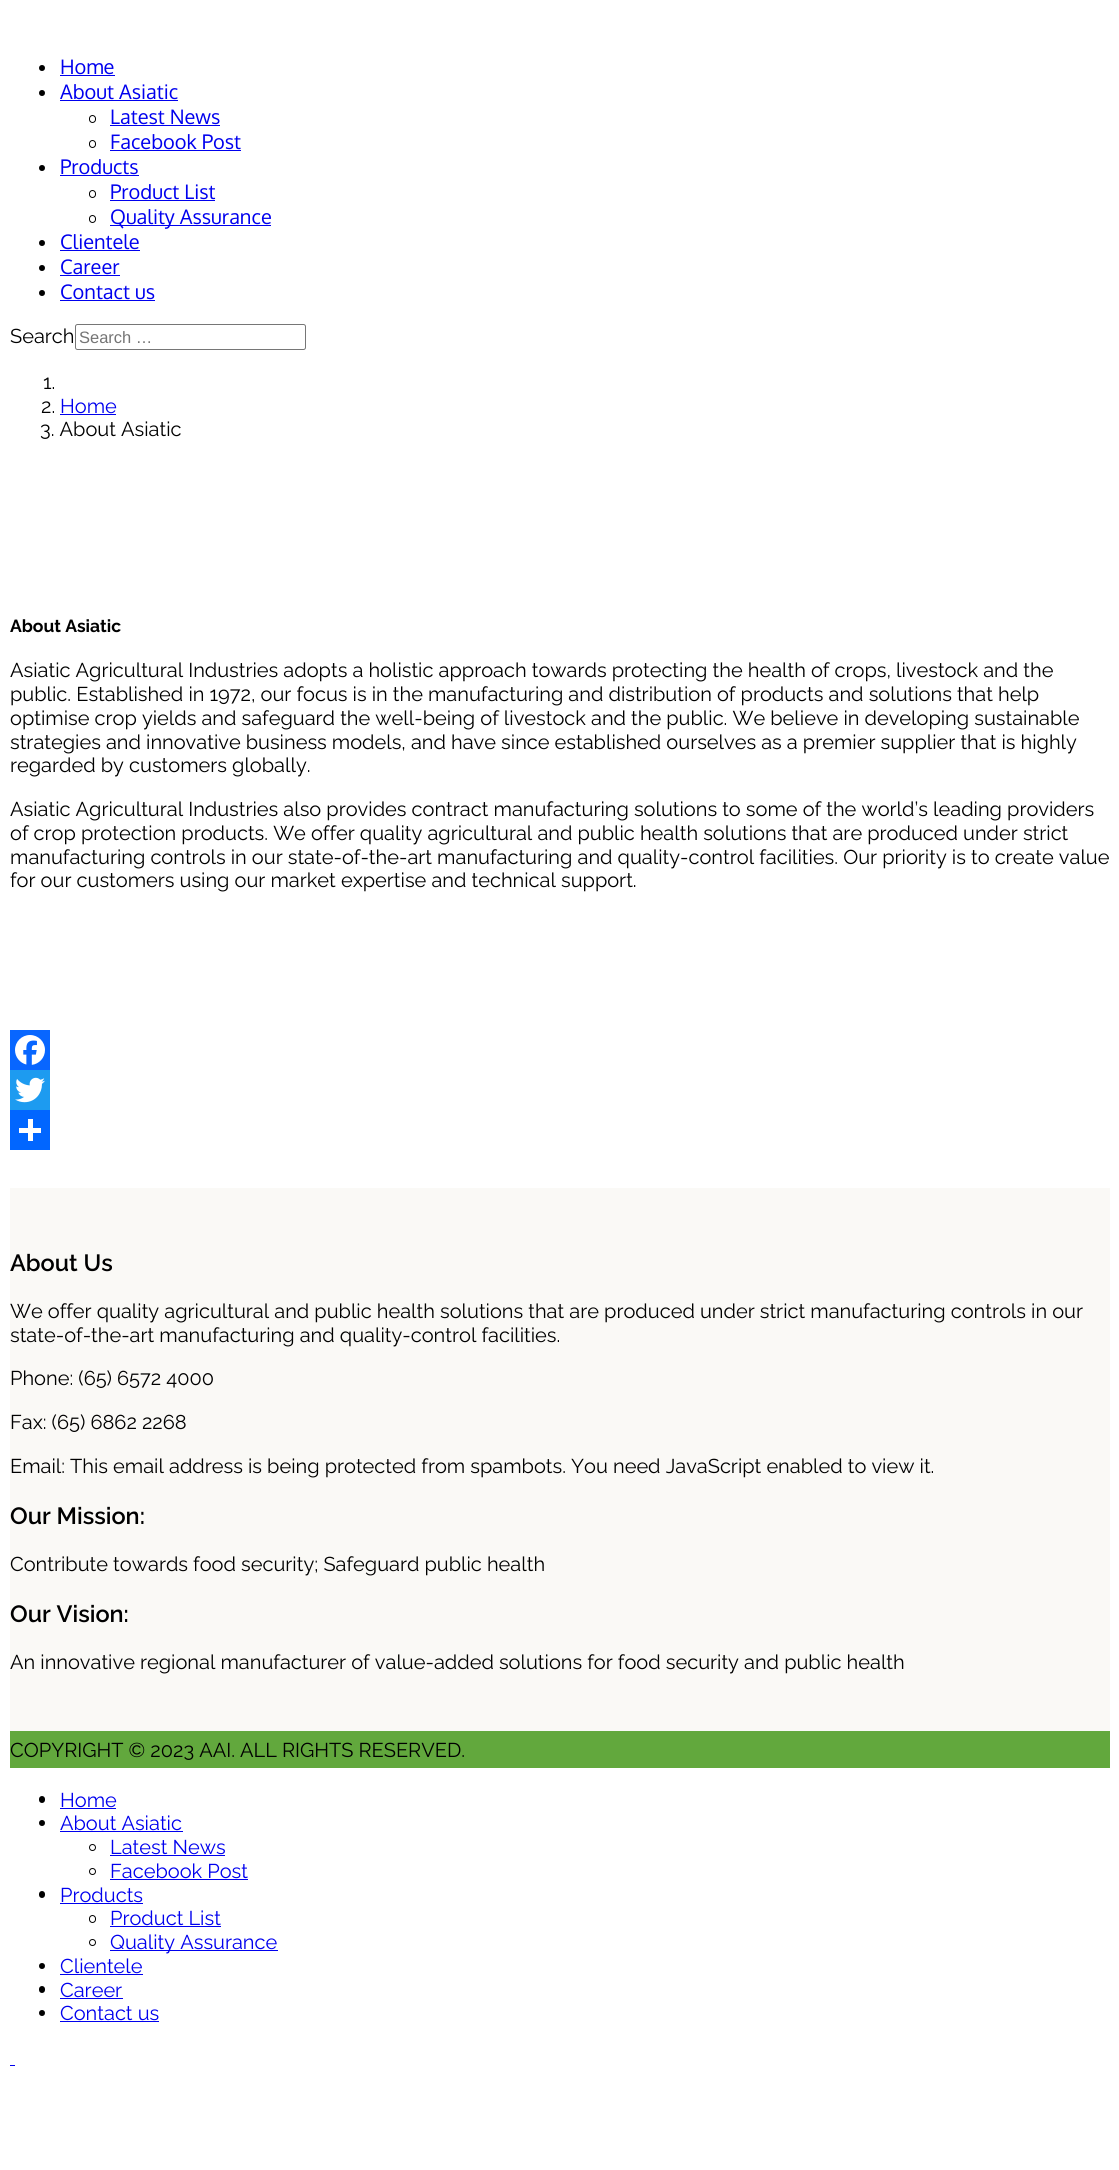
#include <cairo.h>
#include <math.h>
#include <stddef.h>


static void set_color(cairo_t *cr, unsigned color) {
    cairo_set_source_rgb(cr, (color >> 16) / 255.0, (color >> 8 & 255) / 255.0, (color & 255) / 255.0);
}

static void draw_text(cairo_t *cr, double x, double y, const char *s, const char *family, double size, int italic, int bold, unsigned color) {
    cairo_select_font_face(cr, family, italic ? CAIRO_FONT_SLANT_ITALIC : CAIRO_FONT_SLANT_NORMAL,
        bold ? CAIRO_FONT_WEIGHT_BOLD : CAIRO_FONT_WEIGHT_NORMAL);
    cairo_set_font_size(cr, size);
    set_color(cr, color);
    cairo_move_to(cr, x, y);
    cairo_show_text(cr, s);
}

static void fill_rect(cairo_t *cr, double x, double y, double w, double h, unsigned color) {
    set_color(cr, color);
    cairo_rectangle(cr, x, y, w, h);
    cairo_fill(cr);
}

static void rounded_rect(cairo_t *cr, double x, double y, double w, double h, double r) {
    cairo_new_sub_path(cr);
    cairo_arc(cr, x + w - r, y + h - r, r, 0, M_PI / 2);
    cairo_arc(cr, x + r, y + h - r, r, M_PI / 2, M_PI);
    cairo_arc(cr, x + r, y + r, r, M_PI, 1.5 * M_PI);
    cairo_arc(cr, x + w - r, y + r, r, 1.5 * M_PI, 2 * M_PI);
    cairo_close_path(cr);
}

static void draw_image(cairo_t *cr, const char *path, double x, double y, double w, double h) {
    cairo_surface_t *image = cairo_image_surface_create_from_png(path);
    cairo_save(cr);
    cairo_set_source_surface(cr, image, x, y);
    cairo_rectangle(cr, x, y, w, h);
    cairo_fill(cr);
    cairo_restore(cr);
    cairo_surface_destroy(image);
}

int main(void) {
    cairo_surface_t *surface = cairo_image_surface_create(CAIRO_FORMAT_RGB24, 1119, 2170);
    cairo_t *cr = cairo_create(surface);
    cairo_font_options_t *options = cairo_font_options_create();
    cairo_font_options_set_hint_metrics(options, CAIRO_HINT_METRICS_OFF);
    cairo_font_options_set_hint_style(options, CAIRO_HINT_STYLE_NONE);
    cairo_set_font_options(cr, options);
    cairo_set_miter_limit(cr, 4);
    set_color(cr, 0xFFFFFF);
    cairo_paint(cr);
    set_color(cr, 0x000000);
    cairo_arc(cr, 42, 68, 3, 0, 2 * M_PI);
    cairo_fill(cr);
    draw_text(cr, 60, 74, "Home", "Oxygen", 20, 0, 0, 0x0000EE);
    fill_rect(cr, 60, 75, 55, 1, 0x0000EE);
    set_color(cr, 0x000000);
    cairo_new_path(cr);
    cairo_arc(cr, 42, 93, 3, 0, 2 * M_PI);
    cairo_fill(cr);
    draw_text(cr, 60, 99, "About Asiatic", "Oxygen", 20, 0, 0, 0x0000EE);
    fill_rect(cr, 60, 100, 118, 1, 0x0000EE);
    rounded_rect(cr, 89.5, 115.5, 6, 7, 3);
    set_color(cr, 0x000000);
    cairo_set_line_width(cr, 1);
    cairo_stroke(cr);
    draw_text(cr, 110, 124, "Latest News", "Oxygen", 20, 0, 0, 0x0000EE);
    fill_rect(cr, 110, 125, 110, 1, 0x0000EE);
    rounded_rect(cr, 89.5, 140.5, 6, 7, 3);
    set_color(cr, 0x000000);
    cairo_stroke(cr);
    draw_text(cr, 110, 149, "Facebook Post", "Oxygen", 20, 0, 0, 0x0000EE);
    fill_rect(cr, 110, 150, 131, 1, 0x0000EE);
    set_color(cr, 0x000000);
    cairo_new_path(cr);
    cairo_arc(cr, 42, 168, 3, 0, 2 * M_PI);
    cairo_fill(cr);
    draw_text(cr, 60, 174, "Products", "Oxygen", 20, 0, 0, 0x0000EE);
    fill_rect(cr, 60, 175, 79, 1, 0x0000EE);
    rounded_rect(cr, 89.5, 190.5, 6, 7, 3);
    set_color(cr, 0x000000);
    cairo_stroke(cr);
    draw_text(cr, 110, 199, "Product List", "Oxygen", 20, 0, 0, 0x0000EE);
    fill_rect(cr, 110, 200, 105, 1, 0x0000EE);
    rounded_rect(cr, 89.5, 215.5, 6, 7, 3);
    set_color(cr, 0x000000);
    cairo_stroke(cr);
    fill_rect(cr, 110, 225, 161, 1, 0x0000EE);
    draw_text(cr, 110, 224, "Quality Assurance", "Oxygen", 20, 0, 0, 0x0000EE);
    set_color(cr, 0x000000);
    cairo_new_path(cr);
    cairo_arc(cr, 42, 243, 3, 0, 2 * M_PI);
    cairo_fill(cr);
    draw_text(cr, 60, 249, "Clientele", "Oxygen", 20, 0, 0, 0x0000EE);
    fill_rect(cr, 60, 250, 80, 1, 0x0000EE);
    set_color(cr, 0x000000);
    cairo_new_path(cr);
    cairo_arc(cr, 42, 268, 3, 0, 2 * M_PI);
    cairo_fill(cr);
    draw_text(cr, 60, 274, "Career", "Oxygen", 20, 0, 0, 0x0000EE);
    fill_rect(cr, 60, 275, 60, 1, 0x0000EE);
    set_color(cr, 0x000000);
    cairo_new_path(cr);
    cairo_arc(cr, 42, 293, 3, 0, 2 * M_PI);
    cairo_fill(cr);
    draw_text(cr, 60, 299, "Contact us", "Oxygen", 20, 0, 0, 0x0000EE);
    fill_rect(cr, 60, 300, 95, 1, 0x0000EE);
    draw_text(cr, 10, 343, "Search", "Raleway", 20, 0, 0, 0x000000);
    rounded_rect(cr, 75.5, 324.5, 230, 25, 2);
    set_color(cr, 0x767676);
    cairo_stroke(cr);
    draw_text(cr, 79, 343, "Search …", "Liberation Sans", 16.5, 0, 0, 0x757575);
    draw_text(cr, 43, 389, "1.", "Raleway", 20, 0, 0, 0x000000);
    draw_text(cr, 41, 413, "2.", "Raleway", 20, 0, 0, 0x000000);
    draw_text(cr, 60, 413, "Home", "Raleway", 20, 0, 0, 0x0000EE);
    fill_rect(cr, 60, 414, 56, 1, 0x0000EE);
    draw_text(cr, 40, 436, "3. About Asiatic", "Raleway", 20, 0, 0, 0x000000);
    draw_text(cr, 10, 632, "About Asiatic", "Raleway", 17.5, 0, 1, 0x000000);
    draw_text(cr, 10, 677, "Asiatic Agricultural Industries adopts a holistic approach towards protecting the health of crops, livestock and the", "Raleway", 20, 0, 0, 0x000000);
    draw_text(cr, 10, 701, "public. Established in 1972, our focus is in the manufacturing and distribution of products and solutions that help", "Raleway", 20, 0, 0, 0x000000);
    draw_text(cr, 10, 725, "optimise crop yields and safeguard the well-being of livestock and the public. We believe in developing sustainable", "Raleway", 20, 0, 0, 0x000000);
    draw_text(cr, 10, 749, "strategies and innovative business models, and have since established ourselves as a premier supplier that is highly", "Raleway", 20, 0, 0, 0x000000);
    draw_text(cr, 10, 772, "regarded by customers globally.", "Raleway", 20, 0, 0, 0x000000);
    draw_text(cr, 10, 816, "Asiatic Agricultural Industries also provides contract manufacturing solutions to some of the world’s leading providers", "Raleway", 20, 0, 0, 0x000000);
    draw_text(cr, 10, 840, "of crop protection products. We offer quality agricultural and public health solutions that are produced under strict", "Raleway", 20, 0, 0, 0x000000);
    draw_text(cr, 10, 864, "manufacturing controls in our state-of-the-art manufacturing and quality-control facilities. Our priority is to create value", "Raleway", 20, 0, 0, 0x000000);
    draw_text(cr, 10, 887, "for our customers using our market expertise and technical support.", "Raleway", 20, 0, 0, 0x000000);
    fill_rect(cr, 10, 1030, 40, 40, 0x0866FF);
    draw_image(cr, "assets/img1.png", 15, 1035, 30, 30);
    fill_rect(cr, 10, 1070, 40, 40, 0x1D9BF0);
    draw_image(cr, "assets/img2.png", 15, 1077, 30, 26);
    fill_rect(cr, 10, 1110, 40, 40, 0x0166FF);
    fill_rect(cr, 28, 1119, 5, 22, 0xFFFFFF);
    fill_rect(cr, 19, 1128, 22, 5, 0xFFFFFF);
    fill_rect(cr, 10, 1188, 1100, 543, 0xFAF9F6);
    draw_text(cr, 10, 1271, "About Us", "Raleway SemiBold", 23.5, 0, 0, 0x000000);
    draw_text(cr, 10, 1318, "We offer quality agricultural and public health solutions that are produced under strict manufacturing controls in our", "Raleway", 20, 0, 0, 0x000000);
    draw_text(cr, 10, 1342, "state-of-the-art manufacturing and quality-control facilities.", "Raleway", 20, 0, 0, 0x000000);
    draw_text(cr, 10, 1385, "Phone: (65) 6572 4000", "Raleway", 20, 0, 0, 0x000000);
    draw_text(cr, 10, 1429, "Fax: (65) 6862 2268", "Raleway", 20, 0, 0, 0x000000);
    draw_text(cr, 10, 1473, "Email: This email address is being protected from spambots. You need JavaScript enabled to view it.", "Raleway", 20, 0, 0, 0x000000);
    draw_text(cr, 10, 1524, "Our Mission:", "Raleway SemiBold", 23.5, 0, 0, 0x000000);
    draw_text(cr, 10, 1571, "Contribute towards food security; Safeguard public health", "Raleway", 20, 0, 0, 0x000000);
    draw_text(cr, 10, 1622, "Our Vision:", "Raleway SemiBold", 23.5, 0, 0, 0x000000);
    draw_text(cr, 10, 1669, "An innovative regional manufacturer of value-added solutions for food security and public health", "Raleway", 20, 0, 0, 0x000000);
    fill_rect(cr, 10, 1731, 1100, 37, 0x62A83D);
    draw_text(cr, 10, 1757, "COPYRIGHT © 2023 AAI. ALL RIGHTS RESERVED.", "Raleway", 20, 0, 0, 0x000000);
    rounded_rect(cr, 39, 1796, 6, 7, 3);
    cairo_fill(cr);
    draw_text(cr, 60, 1807, "Home", "Raleway", 20, 0, 0, 0x0000EE);
    fill_rect(cr, 60, 1808, 56, 1, 0x0000EE);
    set_color(cr, 0x000000);
    cairo_new_path(cr);
    cairo_arc(cr, 42, 1823, 3, 0, 2 * M_PI);
    cairo_fill(cr);
    draw_text(cr, 60, 1830, "About Asiatic", "Raleway", 20, 0, 0, 0x0000EE);
    fill_rect(cr, 60, 1831, 123, 1, 0x0000EE);
    cairo_new_path(cr);
    cairo_arc(cr, 92.5, 1847.5, 3, 0, 2 * M_PI);
    set_color(cr, 0x000000);
    cairo_stroke(cr);
    draw_text(cr, 110, 1854, "Latest News", "Raleway", 20, 0, 0, 0x0000EE);
    fill_rect(cr, 110, 1855, 115, 1, 0x0000EE);
    cairo_new_path(cr);
    cairo_arc(cr, 92.5, 1871.5, 3, 0, 2 * M_PI);
    set_color(cr, 0x000000);
    cairo_stroke(cr);
    draw_text(cr, 110, 1878, "Facebook Post", "Raleway", 20, 0, 0, 0x0000EE);
    fill_rect(cr, 110, 1879, 138, 1, 0x0000EE);
    set_color(cr, 0x000000);
    rounded_rect(cr, 39, 1891, 6, 7, 3);
    cairo_fill(cr);
    draw_text(cr, 60, 1902, "Products", "Raleway", 20, 0, 0, 0x0000EE);
    fill_rect(cr, 60, 1903, 83, 1, 0x0000EE);
    rounded_rect(cr, 89.5, 1915.5, 6, 7, 3);
    set_color(cr, 0x000000);
    cairo_stroke(cr);
    draw_text(cr, 110, 1925, "Product List", "Raleway", 20, 0, 0, 0x0000EE);
    fill_rect(cr, 110, 1926, 111, 1, 0x0000EE);
    cairo_new_path(cr);
    cairo_arc(cr, 92.5, 1942.5, 3, 0, 2 * M_PI);
    set_color(cr, 0x000000);
    cairo_stroke(cr);
    fill_rect(cr, 110, 1950, 168, 1, 0x0000EE);
    draw_text(cr, 110, 1949, "Quality Assurance", "Raleway", 20, 0, 0, 0x0000EE);
    set_color(cr, 0x000000);
    cairo_new_path(cr);
    cairo_arc(cr, 42, 1966, 3, 0, 2 * M_PI);
    cairo_fill(cr);
    draw_text(cr, 60, 1973, "Clientele", "Raleway", 20, 0, 0, 0x0000EE);
    fill_rect(cr, 60, 1974, 83, 1, 0x0000EE);
    set_color(cr, 0x000000);
    rounded_rect(cr, 39, 1986, 6, 7, 3);
    cairo_fill(cr);
    draw_text(cr, 60, 1997, "Career", "Raleway", 20, 0, 0, 0x0000EE);
    fill_rect(cr, 60, 1998, 63, 1, 0x0000EE);
    set_color(cr, 0x000000);
    cairo_new_path(cr);
    cairo_arc(cr, 42, 2013, 3, 0, 2 * M_PI);
    cairo_fill(cr);
    draw_text(cr, 60, 2020, "Contact us", "Raleway", 20, 0, 0, 0x0000EE);
    fill_rect(cr, 60, 2021, 99, 1, 0x0000EE);
    fill_rect(cr, 10, 2065, 5, 1, 0x0000EE);
    cairo_surface_write_to_png(surface, "output.png");
    cairo_font_options_destroy(options);
    cairo_destroy(cr);
    cairo_surface_destroy(surface);
    return 0;
}
